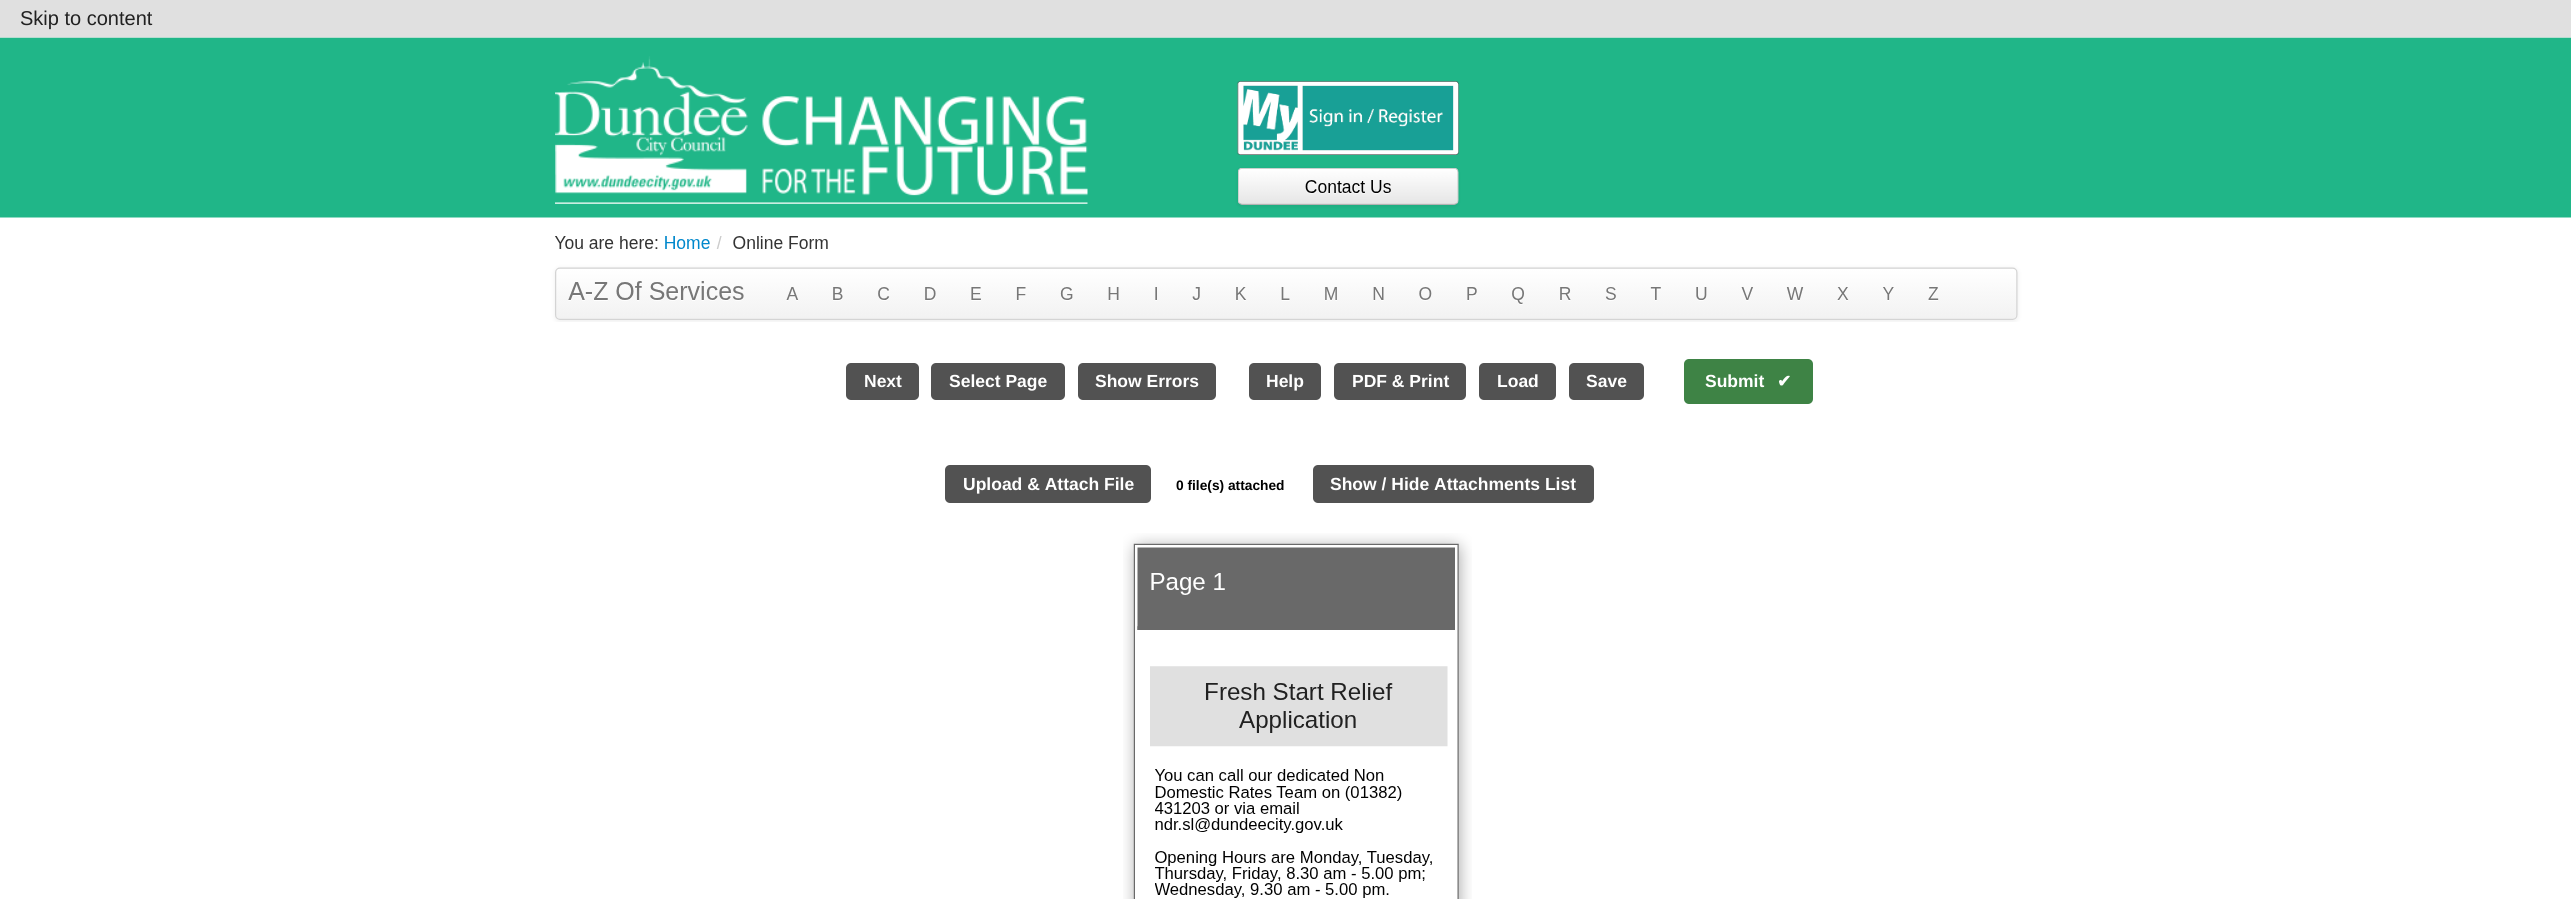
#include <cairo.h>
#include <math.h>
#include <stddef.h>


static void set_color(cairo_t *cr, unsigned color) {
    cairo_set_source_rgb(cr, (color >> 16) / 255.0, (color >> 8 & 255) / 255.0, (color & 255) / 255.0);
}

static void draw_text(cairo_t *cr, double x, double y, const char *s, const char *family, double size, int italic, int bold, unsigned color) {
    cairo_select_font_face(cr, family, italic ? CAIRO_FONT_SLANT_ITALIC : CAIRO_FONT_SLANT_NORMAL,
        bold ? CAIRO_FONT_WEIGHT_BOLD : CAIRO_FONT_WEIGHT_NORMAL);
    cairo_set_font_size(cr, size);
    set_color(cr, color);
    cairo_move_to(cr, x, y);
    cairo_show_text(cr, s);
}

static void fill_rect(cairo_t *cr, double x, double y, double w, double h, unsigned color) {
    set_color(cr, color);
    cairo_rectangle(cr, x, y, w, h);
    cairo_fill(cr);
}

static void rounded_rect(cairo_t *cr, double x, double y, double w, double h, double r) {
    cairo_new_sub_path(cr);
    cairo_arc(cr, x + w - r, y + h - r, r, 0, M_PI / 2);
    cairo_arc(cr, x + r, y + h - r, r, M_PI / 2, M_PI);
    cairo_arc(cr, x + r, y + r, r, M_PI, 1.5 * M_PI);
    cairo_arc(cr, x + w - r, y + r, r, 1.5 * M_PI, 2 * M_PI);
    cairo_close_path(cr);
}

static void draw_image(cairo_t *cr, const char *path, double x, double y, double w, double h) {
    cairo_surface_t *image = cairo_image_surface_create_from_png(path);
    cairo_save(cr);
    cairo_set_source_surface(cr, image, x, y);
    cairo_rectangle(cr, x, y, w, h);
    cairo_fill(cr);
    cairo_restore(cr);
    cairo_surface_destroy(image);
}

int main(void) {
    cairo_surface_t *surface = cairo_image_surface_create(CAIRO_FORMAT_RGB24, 2571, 899);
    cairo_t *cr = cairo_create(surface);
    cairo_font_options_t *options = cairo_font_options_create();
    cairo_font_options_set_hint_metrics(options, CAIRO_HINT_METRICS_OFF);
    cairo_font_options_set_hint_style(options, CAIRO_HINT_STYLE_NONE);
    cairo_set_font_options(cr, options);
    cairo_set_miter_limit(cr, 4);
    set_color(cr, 0xFFFFFF);
    cairo_paint(cr);
    fill_rect(cr, 0, 0, 2571, 38, 0xE0E0E0);
    draw_text(cr, 20, 25, "Skip to content", "Liberation Sans", 20, 0, 0, 0x212121);
    draw_image(cr, "assets/img1.png", 0, 37, 2571, 285);
    set_color(cr, 0x525252);
    rounded_rect(cr, 846, 363, 73, 37, 5);
    cairo_fill(cr);
    draw_text(cr, 864, 387, "Next", "Liberation Sans", 17.5, 0, 1, 0xFFFFFF);
    set_color(cr, 0x525252);
    rounded_rect(cr, 931, 363, 134, 37, 5);
    cairo_fill(cr);
    draw_text(cr, 949, 387, "Select Page", "Liberation Sans", 17.5, 0, 1, 0xFFFFFF);
    set_color(cr, 0x525252);
    rounded_rect(cr, 1078, 363, 138, 37, 5);
    cairo_fill(cr);
    draw_text(cr, 1095, 387, "Show Errors", "Liberation Sans", 17.5, 0, 1, 0xFFFFFF);
    set_color(cr, 0x525252);
    rounded_rect(cr, 1249, 363, 72, 37, 5);
    cairo_fill(cr);
    draw_text(cr, 1266, 387, "Help", "Liberation Sans", 17.5, 0, 1, 0xFFFFFF);
    set_color(cr, 0x525252);
    rounded_rect(cr, 1334, 363, 132, 37, 5);
    cairo_fill(cr);
    draw_text(cr, 1352, 387, "PDF & Print", "Liberation Sans", 17.5, 0, 1, 0xFFFFFF);
    set_color(cr, 0x525252);
    rounded_rect(cr, 1479, 363, 77, 37, 5);
    cairo_fill(cr);
    draw_text(cr, 1497, 387, "Load", "Liberation Sans", 17.5, 0, 1, 0xFFFFFF);
    set_color(cr, 0x525252);
    rounded_rect(cr, 1569, 363, 75, 37, 5);
    cairo_fill(cr);
    draw_text(cr, 1586, 387, "Save", "Liberation Sans", 17.5, 0, 1, 0xFFFFFF);
    set_color(cr, 0x3E8345);
    rounded_rect(cr, 1684, 359, 129, 45, 5);
    cairo_fill(cr);
    draw_text(cr, 1705, 387, "Submit", "Liberation Sans", 17.5, 0, 1, 0xFFFFFF);
    draw_text(cr, 1777, 387, "✔", "DejaVu Sans", 17, 0, 1, 0xFFFFFF);
    set_color(cr, 0x525252);
    rounded_rect(cr, 945, 465, 206, 38, 5);
    cairo_fill(cr);
    draw_text(cr, 963, 490, "Upload & Attach File", "Liberation Sans", 17.5, 0, 1, 0xFFFFFF);
    draw_text(cr, 1176, 490, "0 file(s) attached", "Liberation Sans", 13.75, 0, 1, 0x000000);
    set_color(cr, 0x525252);
    rounded_rect(cr, 1313, 465, 281, 38, 5);
    cairo_fill(cr);
    draw_text(cr, 1330, 490, "Show / Hide Attachments List", "Liberation Sans", 17.5, 0, 1, 0xFFFFFF);
    draw_image(cr, "assets/img2.png", 1123, 533, 349, 366);
    cairo_surface_write_to_png(surface, "output.png");
    cairo_font_options_destroy(options);
    cairo_destroy(cr);
    cairo_surface_destroy(surface);
    return 0;
}
